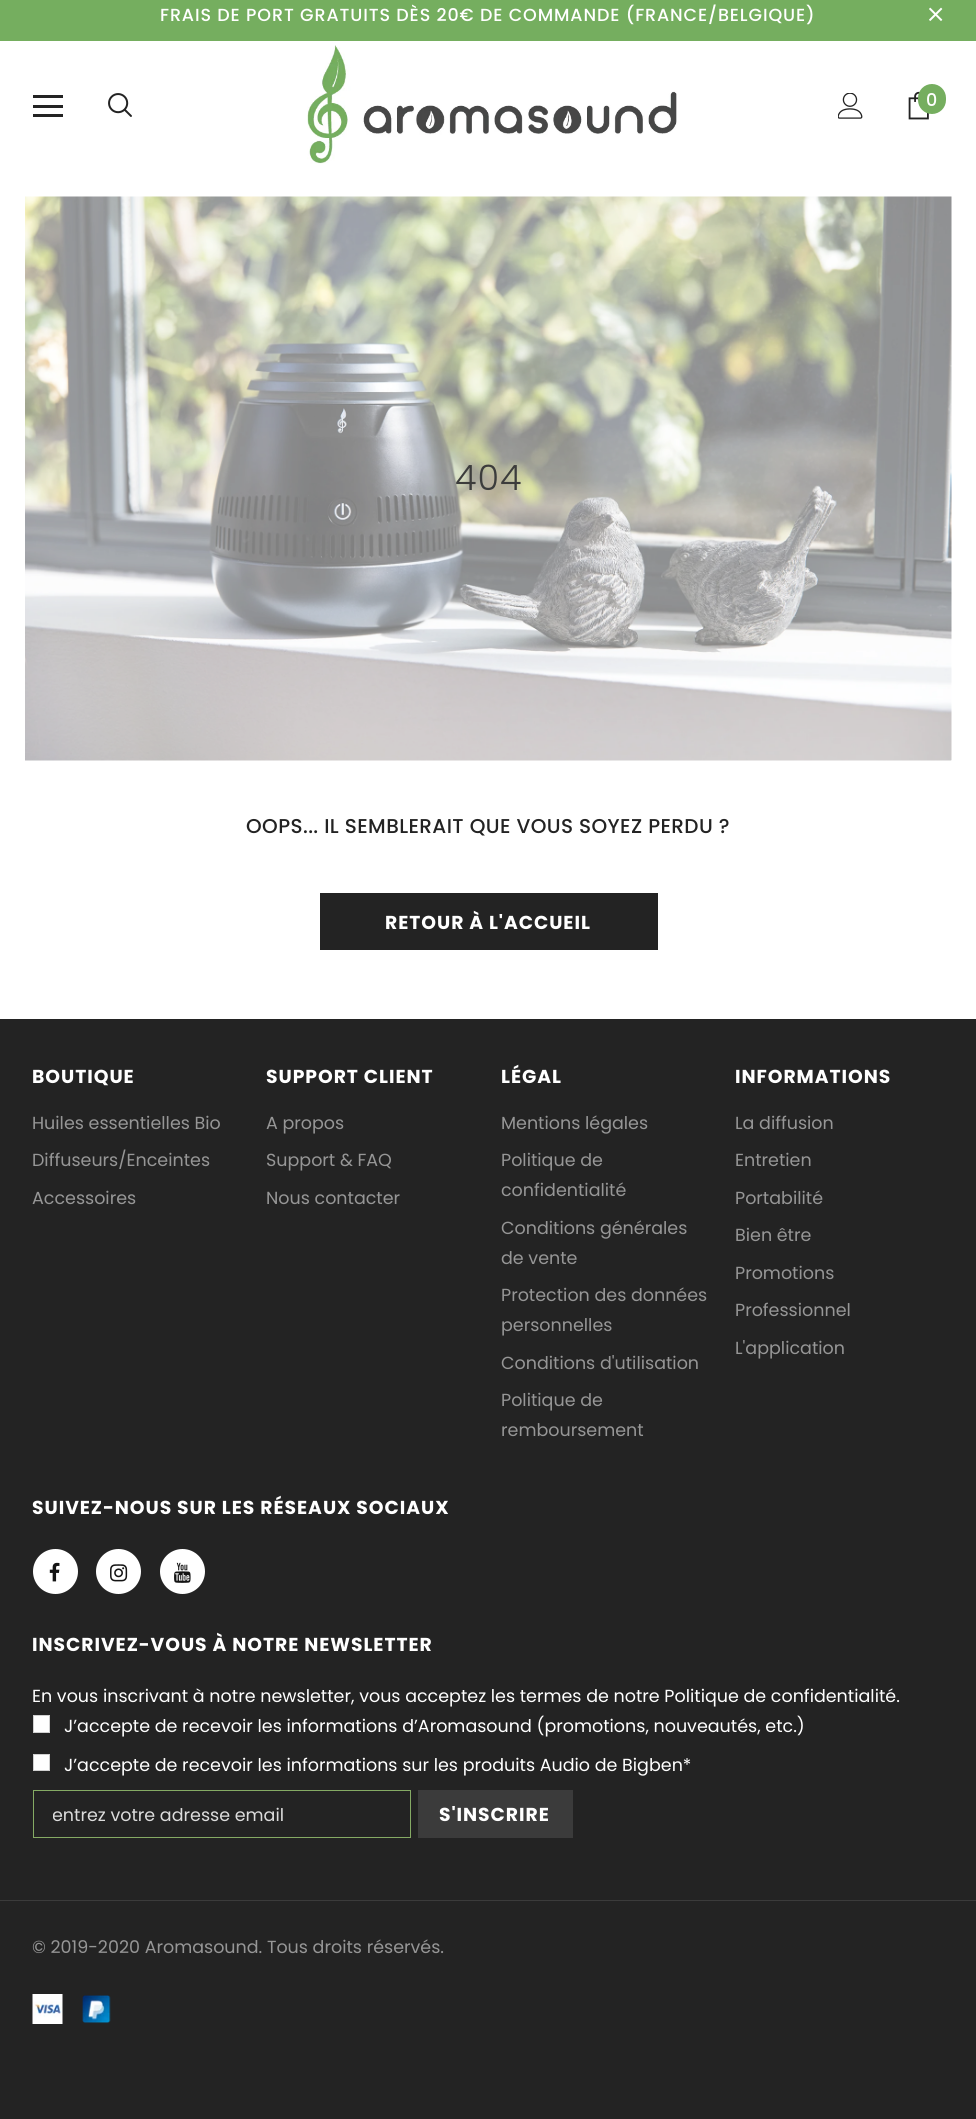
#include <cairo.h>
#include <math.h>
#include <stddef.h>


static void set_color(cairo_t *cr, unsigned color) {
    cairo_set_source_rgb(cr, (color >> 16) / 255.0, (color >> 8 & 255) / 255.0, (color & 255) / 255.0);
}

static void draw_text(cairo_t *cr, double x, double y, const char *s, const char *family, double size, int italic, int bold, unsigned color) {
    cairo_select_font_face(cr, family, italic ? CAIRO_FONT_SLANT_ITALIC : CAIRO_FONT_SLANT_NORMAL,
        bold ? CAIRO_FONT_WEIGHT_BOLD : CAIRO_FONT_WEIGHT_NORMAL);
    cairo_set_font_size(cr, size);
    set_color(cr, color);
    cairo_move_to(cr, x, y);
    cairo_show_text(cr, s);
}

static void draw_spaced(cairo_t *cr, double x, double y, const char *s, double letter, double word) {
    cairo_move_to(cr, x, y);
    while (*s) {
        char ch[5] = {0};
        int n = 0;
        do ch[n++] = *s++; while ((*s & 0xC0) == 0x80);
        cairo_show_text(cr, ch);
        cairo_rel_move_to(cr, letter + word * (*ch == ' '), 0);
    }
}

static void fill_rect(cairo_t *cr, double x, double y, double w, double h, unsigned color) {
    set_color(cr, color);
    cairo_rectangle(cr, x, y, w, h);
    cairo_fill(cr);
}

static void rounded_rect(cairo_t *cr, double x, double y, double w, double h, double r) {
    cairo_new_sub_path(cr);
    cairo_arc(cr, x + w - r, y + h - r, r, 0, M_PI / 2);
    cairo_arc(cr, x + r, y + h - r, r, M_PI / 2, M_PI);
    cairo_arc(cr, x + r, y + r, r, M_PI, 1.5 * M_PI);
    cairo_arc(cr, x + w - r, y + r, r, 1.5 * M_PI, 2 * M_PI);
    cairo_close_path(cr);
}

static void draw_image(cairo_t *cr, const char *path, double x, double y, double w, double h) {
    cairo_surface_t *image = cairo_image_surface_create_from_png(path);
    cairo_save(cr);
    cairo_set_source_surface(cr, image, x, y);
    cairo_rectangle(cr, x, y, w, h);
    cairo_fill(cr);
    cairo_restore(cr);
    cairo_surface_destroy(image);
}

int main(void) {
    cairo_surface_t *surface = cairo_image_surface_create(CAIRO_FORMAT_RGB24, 976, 2119);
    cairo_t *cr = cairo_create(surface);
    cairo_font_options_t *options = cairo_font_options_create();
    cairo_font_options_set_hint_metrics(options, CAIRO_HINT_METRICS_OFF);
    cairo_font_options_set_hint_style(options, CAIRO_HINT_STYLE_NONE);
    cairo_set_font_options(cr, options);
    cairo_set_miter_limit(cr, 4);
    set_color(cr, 0xFFFFFF);
    cairo_paint(cr);
    fill_rect(cr, 0, 0, 976, 41, 0x75AE5F);
    cairo_select_font_face(cr, "Poppins Medium", CAIRO_FONT_SLANT_NORMAL, CAIRO_FONT_WEIGHT_NORMAL);
    cairo_set_font_size(cr, 17.5);
    set_color(cr, 0xFFFFFF);
    draw_spaced(cr, 160, 21, "FRAIS DE PORT GRATUITS DÈS 20€ DE COMMANDE (FRANCE/BELGIQUE)", 0.88, 0);
    draw_image(cr, "assets/img1.png", 929, 7, 14, 14);
    fill_rect(cr, 33, 95, 30, 3, 0x232323);
    fill_rect(cr, 33, 105, 30, 3, 0x232323);
    fill_rect(cr, 33, 114, 30, 3, 0x232323);
    draw_image(cr, "assets/img2.png", 108, 93, 24, 24);
    draw_image(cr, "assets/img3.png", 307, 45, 370, 119);
    draw_image(cr, "assets/img4.png", 838, 93, 25, 26);
    draw_image(cr, "assets/img5.png", 908, 91, 21, 29);
    set_color(cr, 0x75AE5F);
    rounded_rect(cr, 918, 84, 28, 30, 14);
    cairo_fill(cr);
    draw_text(cr, 926, 106, "0", "Poppins Medium", 17.5, 0, 0, 0xFFFFFF);
    draw_image(cr, "assets/img6.png", 25, 196, 927, 565);
    cairo_select_font_face(cr, "Poppins Light", CAIRO_FONT_SLANT_NORMAL, CAIRO_FONT_WEIGHT_NORMAL);
    cairo_set_font_size(cr, 35);
    set_color(cr, 0x3C3C3C);
    draw_spaced(cr, 455, 490, "404", 1, 0);
    cairo_select_font_face(cr, "Poppins Medium", CAIRO_FONT_SLANT_NORMAL, CAIRO_FONT_WEIGHT_NORMAL);
    cairo_set_font_size(cr, 20);
    set_color(cr, 0x232323);
    draw_spaced(cr, 246, 833, "OOPS... IL SEMBLERAIT QUE VOUS SOYEZ PERDU ?", 0.4, 0);
    fill_rect(cr, 320, 893, 338, 57, 0x232323);
    cairo_select_font_face(cr, "Poppins", CAIRO_FONT_SLANT_NORMAL, CAIRO_FONT_WEIGHT_BOLD);
    cairo_set_font_size(cr, 18.75);
    set_color(cr, 0xFFFFFF);
    draw_spaced(cr, 385, 929, "RETOUR À L'ACCUEIL", 0.95, 0);
    fill_rect(cr, 0, 1019, 976, 1100, 0x232323);
    set_color(cr, 0xFFFFFF);
    draw_spaced(cr, 32, 1083, "BOUTIQUE", 0.95, 0);
    draw_text(cr, 32, 1129, "Huiles essentielles Bio", "Poppins", 17.5, 0, 0, 0x969696);
    draw_text(cr, 32, 1166, "Diffuseurs/Enceintes", "Poppins", 17.5, 0, 0, 0x969696);
    draw_text(cr, 32, 1204, "Accessoires", "Poppins", 17.5, 0, 0, 0x969696);
    cairo_select_font_face(cr, "Poppins", CAIRO_FONT_SLANT_NORMAL, CAIRO_FONT_WEIGHT_BOLD);
    cairo_set_font_size(cr, 18.75);
    set_color(cr, 0xFFFFFF);
    draw_spaced(cr, 266, 1083, "SUPPORT CLIENT", 0.95, 0);
    draw_text(cr, 266, 1129, "A propos", "Poppins", 17.5, 0, 0, 0x969696);
    draw_text(cr, 266, 1166, "Support & FAQ", "Poppins", 17.5, 0, 0, 0x969696);
    draw_text(cr, 266, 1204, "Nous contacter", "Poppins", 17.5, 0, 0, 0x969696);
    cairo_select_font_face(cr, "Poppins", CAIRO_FONT_SLANT_NORMAL, CAIRO_FONT_WEIGHT_BOLD);
    cairo_set_font_size(cr, 18.75);
    set_color(cr, 0xFFFFFF);
    draw_spaced(cr, 501, 1083, "LÉGAL", 0.95, 0);
    draw_text(cr, 501, 1129, "Mentions légales", "Poppins", 17.5, 0, 0, 0x969696);
    draw_text(cr, 501, 1166, "Politique de", "Poppins", 17.5, 0, 0, 0x969696);
    draw_text(cr, 501, 1196, "confidentialité", "Poppins", 17.5, 0, 0, 0x969696);
    draw_text(cr, 501, 1234, "Conditions générales", "Poppins", 17.5, 0, 0, 0x969696);
    draw_text(cr, 501, 1264, "de vente", "Poppins", 17.5, 0, 0, 0x969696);
    draw_text(cr, 501, 1301, "Protection des données", "Poppins", 17.5, 0, 0, 0x969696);
    draw_text(cr, 501, 1331, "personnelles", "Poppins", 17.5, 0, 0, 0x969696);
    draw_text(cr, 501, 1369, "Conditions d'utilisation", "Poppins", 17.5, 0, 0, 0x969696);
    draw_text(cr, 501, 1406, "Politique de", "Poppins", 17.5, 0, 0, 0x969696);
    draw_text(cr, 501, 1436, "remboursement", "Poppins", 17.5, 0, 0, 0x969696);
    cairo_select_font_face(cr, "Poppins", CAIRO_FONT_SLANT_NORMAL, CAIRO_FONT_WEIGHT_BOLD);
    cairo_set_font_size(cr, 18.75);
    set_color(cr, 0xFFFFFF);
    draw_spaced(cr, 735, 1083, "INFORMATIONS", 0.95, 0);
    draw_text(cr, 735, 1129, "La diffusion", "Poppins", 17.5, 0, 0, 0x969696);
    draw_text(cr, 735, 1166, "Entretien", "Poppins", 17.5, 0, 0, 0x969696);
    draw_text(cr, 735, 1204, "Portabilité", "Poppins", 17.5, 0, 0, 0x969696);
    draw_text(cr, 735, 1241, "Bien être", "Poppins", 17.5, 0, 0, 0x969696);
    draw_text(cr, 735, 1279, "Promotions", "Poppins", 17.5, 0, 0, 0x969696);
    draw_text(cr, 735, 1316, "Professionnel", "Poppins", 17.5, 0, 0, 0x969696);
    draw_text(cr, 735, 1354, "L'application", "Poppins", 17.5, 0, 0, 0x969696);
    cairo_select_font_face(cr, "Poppins", CAIRO_FONT_SLANT_NORMAL, CAIRO_FONT_WEIGHT_BOLD);
    cairo_set_font_size(cr, 18.75);
    set_color(cr, 0xFFFFFF);
    draw_spaced(cr, 32, 1514, "SUIVEZ-NOUS SUR LES RÉSEAUX SOCIAUX", 0.95, 0);
    cairo_new_path(cr);
    cairo_arc(cr, 55.5, 1571.5, 22.5, 0, 2 * M_PI);
    cairo_fill(cr);
    draw_image(cr, "assets/img7.png", 49, 1562, 11, 20);
    cairo_arc(cr, 118.5, 1571.5, 22.5, 0, 2 * M_PI);
    cairo_fill(cr);
    draw_image(cr, "assets/img8.png", 110, 1564, 18, 18);
    cairo_arc(cr, 182.5, 1571.5, 22.5, 0, 2 * M_PI);
    cairo_fill(cr);
    draw_image(cr, "assets/img9.png", 174, 1562, 17, 21);
    draw_spaced(cr, 32, 1651, "INSCRIVEZ-VOUS À NOTRE NEWSLETTER", 0.95, 0);
    draw_text(cr, 32, 1702, "En vous inscrivant à notre newsletter, vous acceptez les termes de notre Politique de confidentialité.", "Poppins", 17.5, 0, 0, 0xFFFFFF);
    cairo_rectangle(cr, 33.5, 1715.5, 16, 17);
    cairo_fill_preserve(cr);
    set_color(cr, 0xD0D0D0);
    cairo_set_line_width(cr, 1);
    cairo_stroke(cr);
    draw_text(cr, 64, 1732, "J’accepte de recevoir les informations d’Aromasound (promotions, nouveautés, etc.)", "Poppins", 17.5, 0, 0, 0xFFFFFF);
    cairo_rectangle(cr, 33.5, 1754.5, 16, 16);
    cairo_fill_preserve(cr);
    set_color(cr, 0xD0D0D0);
    cairo_stroke(cr);
    draw_text(cr, 64, 1771, "J’accepte de recevoir les informations sur les produits Audio de Bigben*", "Poppins", 17.5, 0, 0, 0xFFFFFF);
    cairo_rectangle(cr, 33.5, 1790.5, 377, 47);
    set_color(cr, 0x85AA64);
    cairo_stroke(cr);
    cairo_save(cr);
    cairo_rectangle(cr, 53, 1803, 338, 26);
    cairo_clip(cr);
    draw_text(cr, 52, 1821, "entrez votre adresse email", "Poppins", 17.5, 0, 0, 0xDCDCDC);
    cairo_restore(cr);
    fill_rect(cr, 418, 1790, 155, 48, 0x3B3B3B);
    cairo_select_font_face(cr, "Poppins", CAIRO_FONT_SLANT_NORMAL, CAIRO_FONT_WEIGHT_BOLD);
    cairo_set_font_size(cr, 18.75);
    set_color(cr, 0xFFFFFF);
    draw_spaced(cr, 439, 1821, "S'INSCRIRE", 0.95, 0);
    fill_rect(cr, 0, 1900, 976, 1, 0x3B3B3B);
    draw_text(cr, 32, 1953, "© 2019-2020 Aromasound. Tous droits réservés.", "Poppins", 17.5, 0, 0, 0x969696);
    draw_image(cr, "assets/img10.png", 32, 1994, 31, 30);
    draw_image(cr, "assets/img11.png", 82, 1995, 29, 29);
    cairo_surface_write_to_png(surface, "output.png");
    cairo_font_options_destroy(options);
    cairo_destroy(cr);
    cairo_surface_destroy(surface);
    return 0;
}
